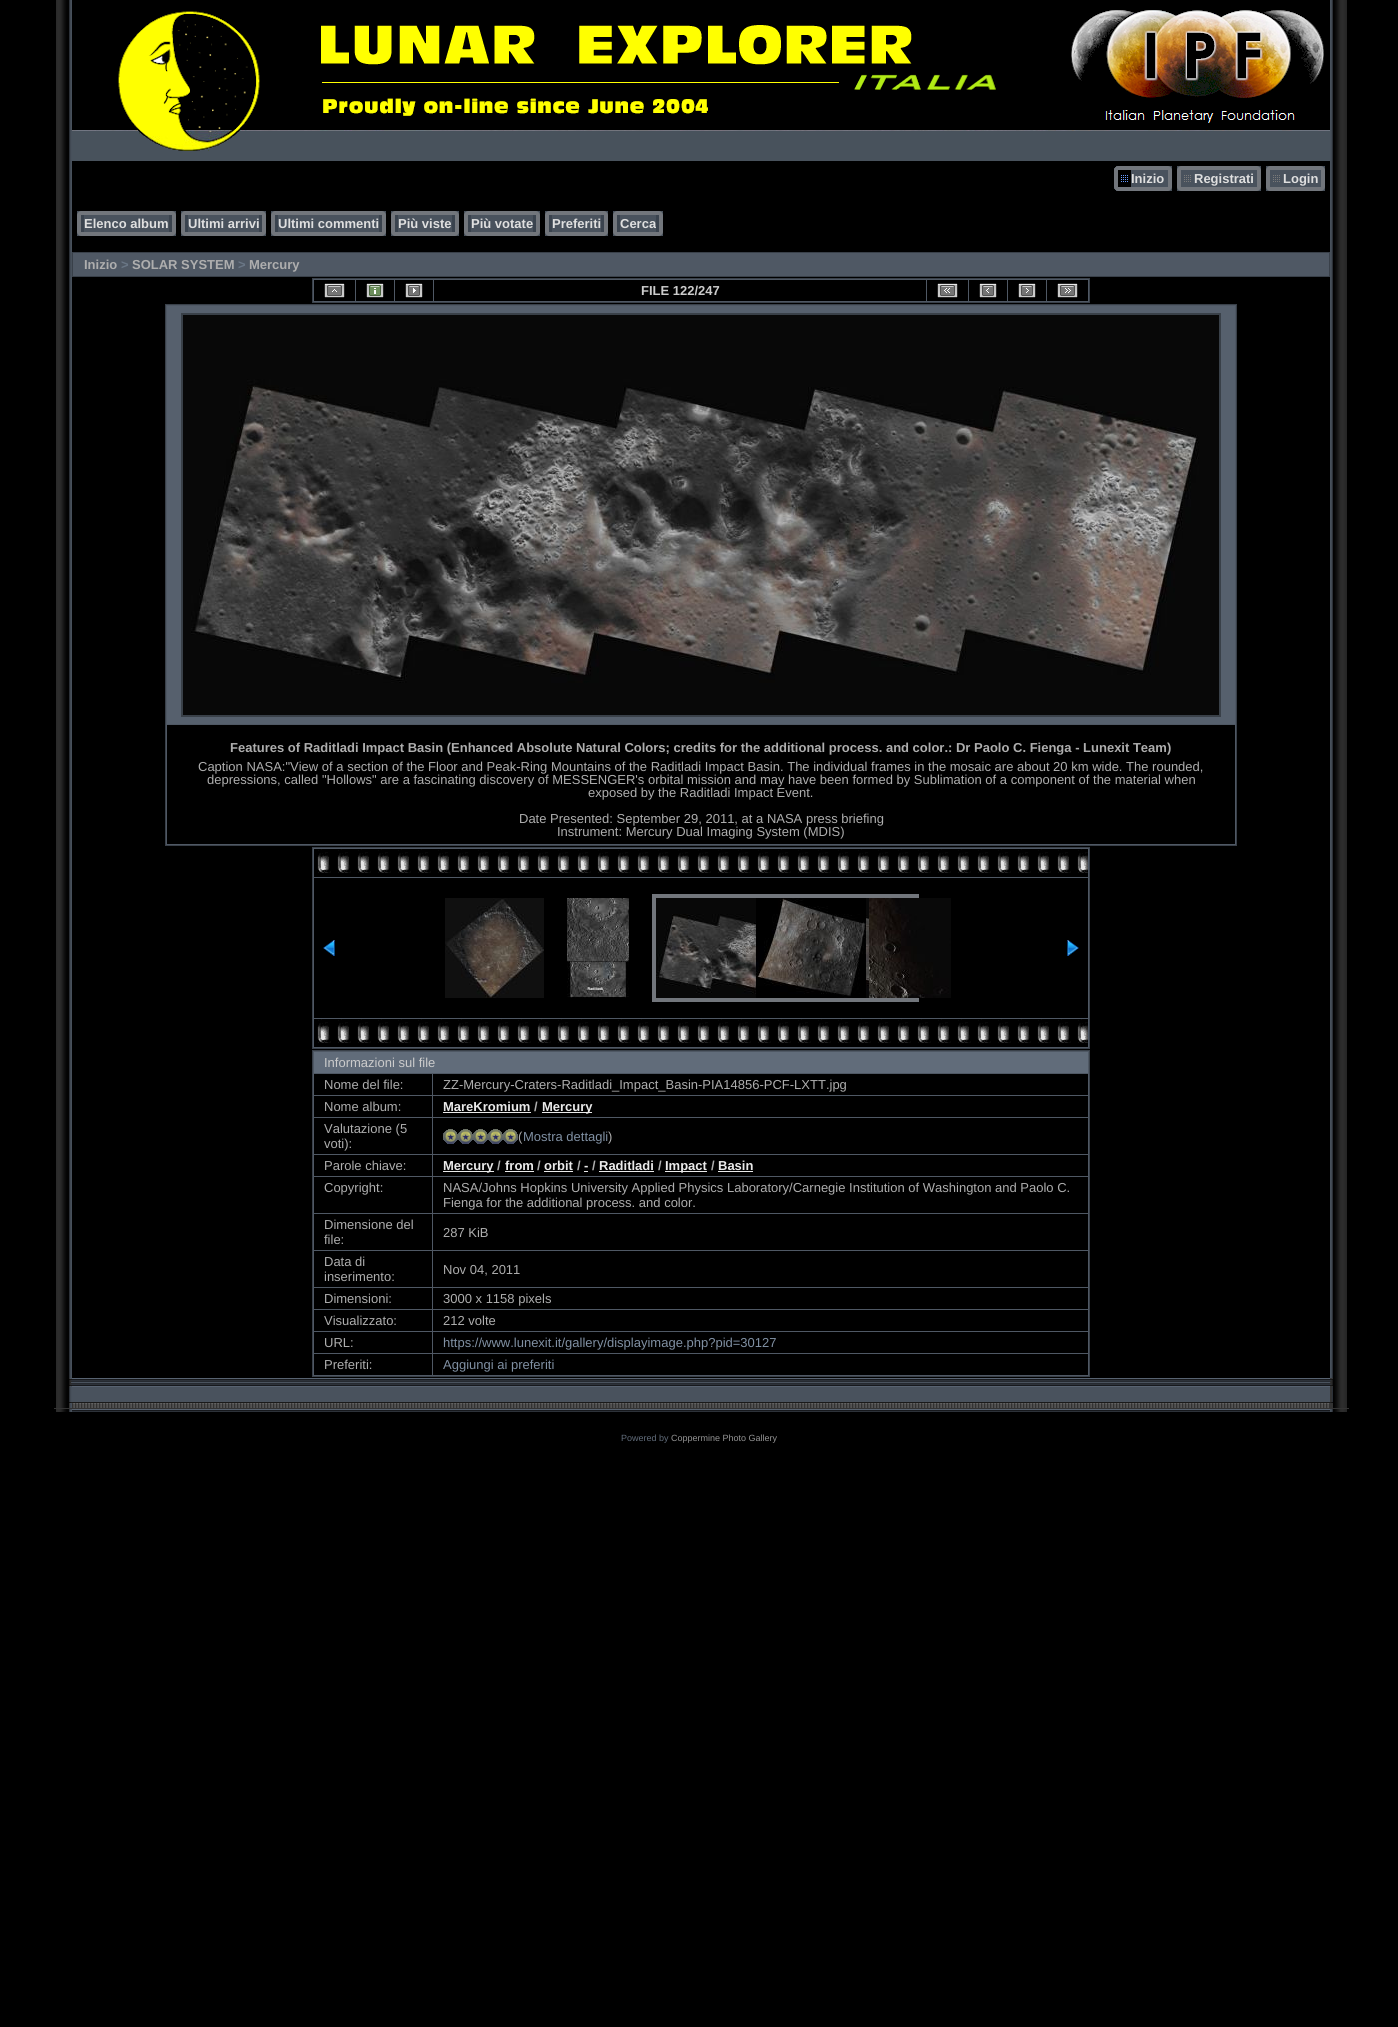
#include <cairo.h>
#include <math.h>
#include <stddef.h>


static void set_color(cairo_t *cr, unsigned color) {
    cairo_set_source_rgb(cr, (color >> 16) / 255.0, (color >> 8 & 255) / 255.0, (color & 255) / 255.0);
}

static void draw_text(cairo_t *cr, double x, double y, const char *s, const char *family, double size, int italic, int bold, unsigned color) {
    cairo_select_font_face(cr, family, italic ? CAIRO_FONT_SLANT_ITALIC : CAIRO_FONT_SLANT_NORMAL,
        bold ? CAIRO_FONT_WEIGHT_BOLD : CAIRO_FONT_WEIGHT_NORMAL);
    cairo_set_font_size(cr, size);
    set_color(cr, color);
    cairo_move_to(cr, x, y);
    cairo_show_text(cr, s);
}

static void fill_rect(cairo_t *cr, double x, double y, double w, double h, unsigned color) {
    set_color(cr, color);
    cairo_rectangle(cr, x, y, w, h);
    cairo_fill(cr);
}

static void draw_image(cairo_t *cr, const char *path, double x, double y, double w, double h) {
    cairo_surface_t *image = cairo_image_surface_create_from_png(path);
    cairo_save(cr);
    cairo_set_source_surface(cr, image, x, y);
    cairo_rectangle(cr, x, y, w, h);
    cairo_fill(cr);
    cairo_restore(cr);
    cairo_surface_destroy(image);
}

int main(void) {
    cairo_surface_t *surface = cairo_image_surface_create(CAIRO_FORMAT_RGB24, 1398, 2027);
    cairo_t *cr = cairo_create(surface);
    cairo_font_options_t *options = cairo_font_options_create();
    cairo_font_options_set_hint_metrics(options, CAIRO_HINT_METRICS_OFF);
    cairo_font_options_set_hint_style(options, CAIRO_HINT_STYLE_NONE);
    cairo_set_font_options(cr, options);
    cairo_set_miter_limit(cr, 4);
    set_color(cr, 0x000000);
    cairo_paint(cr);
    draw_image(cr, "assets/img1.png", 56, 0, 16, 161);
    fill_rect(cr, 72, 151, 1258, 10, 0x48525C);
    draw_image(cr, "assets/img2.png", 72, 10, 1258, 141);
    draw_image(cr, "assets/img3.png", 1330, 0, 17, 161);
    draw_image(cr, "assets/img4.png", 56, 161, 16, 1217);
    draw_image(cr, "assets/img5.png", 1114, 166, 17, 25);
    draw_image(cr, "assets/img6.png", 1131, 166, 34, 25);
    draw_text(cr, 1131, 183, "Inizio", "Liberation Sans", 13, 0, 1, 0xDFDFDF);
    draw_image(cr, "assets/img7.png", 1165, 166, 7, 25);
    draw_image(cr, "assets/img8.png", 1177, 166, 17, 25);
    draw_image(cr, "assets/img9.png", 1194, 166, 60, 25);
    draw_text(cr, 1194, 183, "Registrati", "Liberation Sans", 13, 0, 1, 0xDFDFDF);
    draw_image(cr, "assets/img7.png", 1254, 166, 7, 25);
    draw_image(cr, "assets/img8.png", 1266, 166, 17, 25);
    draw_image(cr, "assets/img10.png", 1283, 166, 35, 25);
    draw_text(cr, 1283, 183, "Login", "Liberation Sans", 13, 0, 1, 0xDFDFDF);
    draw_image(cr, "assets/img7.png", 1318, 166, 7, 25);
    draw_image(cr, "assets/img11.png", 77, 211, 7, 25);
    draw_image(cr, "assets/img12.png", 84, 211, 85, 25);
    draw_text(cr, 84, 228, "Elenco album", "Liberation Sans", 13, 0, 1, 0xDFDFDF);
    draw_image(cr, "assets/img13.png", 169, 211, 7, 25);
    draw_image(cr, "assets/img11.png", 181, 211, 7, 25);
    draw_image(cr, "assets/img14.png", 188, 211, 71, 25);
    draw_text(cr, 188, 228, "Ultimi arrivi", "Liberation Sans", 13, 0, 1, 0xDFDFDF);
    draw_image(cr, "assets/img13.png", 259, 211, 7, 25);
    draw_image(cr, "assets/img11.png", 271, 211, 7, 25);
    draw_image(cr, "assets/img15.png", 278, 211, 101, 25);
    draw_text(cr, 278, 228, "Ultimi commenti", "Liberation Sans", 13, 0, 1, 0xDFDFDF);
    draw_image(cr, "assets/img13.png", 379, 211, 7, 25);
    draw_image(cr, "assets/img11.png", 391, 211, 7, 25);
    draw_image(cr, "assets/img16.png", 398, 211, 54, 25);
    draw_text(cr, 398, 228, "Più viste", "Liberation Sans", 13, 0, 1, 0xDFDFDF);
    draw_image(cr, "assets/img13.png", 452, 211, 7, 25);
    draw_image(cr, "assets/img11.png", 464, 211, 7, 25);
    draw_image(cr, "assets/img17.png", 471, 211, 62, 25);
    draw_text(cr, 471, 228, "Più votate", "Liberation Sans", 13, 0, 1, 0xDFDFDF);
    draw_image(cr, "assets/img13.png", 533, 211, 7, 25);
    draw_image(cr, "assets/img11.png", 545, 211, 7, 25);
    draw_image(cr, "assets/img18.png", 552, 211, 49, 25);
    draw_text(cr, 552, 228, "Preferiti", "Liberation Sans", 13, 0, 1, 0xDFDFDF);
    draw_image(cr, "assets/img13.png", 601, 211, 7, 25);
    draw_image(cr, "assets/img11.png", 613, 211, 7, 25);
    draw_image(cr, "assets/img19.png", 620, 211, 36, 25);
    draw_text(cr, 620, 228, "Cerca", "Liberation Sans", 13, 0, 1, 0xDFDFDF);
    draw_image(cr, "assets/img13.png", 656, 211, 7, 25);
    set_color(cr, 0x4F5864);
    cairo_rectangle(cr, 72.5, 252.5, 1257, 24);
    cairo_fill_preserve(cr);
    set_color(cr, 0x394049);
    cairo_set_line_width(cr, 1);
    cairo_stroke(cr);
    draw_text(cr, 84, 269, "Inizio", "Liberation Sans", 13, 0, 1, 0xAEAEAE);
    draw_text(cr, 121, 269, ">", "Liberation Sans", 13, 0, 1, 0x6A7786);
    draw_text(cr, 132, 269, "SOLAR SYSTEM", "Liberation Sans", 13, 0, 1, 0xAEAEAE);
    draw_text(cr, 238, 269, ">", "Liberation Sans", 13, 0, 1, 0x6A7786);
    draw_text(cr, 249, 269, "Mercury", "Liberation Sans", 13, 0, 1, 0xAEAEAE);
    set_color(cr, 0x4F5864);
    cairo_rectangle(cr, 312.5, 278.5, 777, 24);
    cairo_fill_preserve(cr);
    set_color(cr, 0x394049);
    cairo_stroke(cr);
    fill_rect(cr, 314, 280, 41, 21, 0x000000);
    draw_image(cr, "assets/img20.png", 324, 283, 21, 15);
    fill_rect(cr, 356, 280, 38, 21, 0x000000);
    draw_image(cr, "assets/img21.png", 366, 283, 18, 15);
    fill_rect(cr, 395, 280, 38, 21, 0x000000);
    draw_image(cr, "assets/img22.png", 405, 283, 18, 15);
    fill_rect(cr, 434, 280, 492, 21, 0x000000);
    draw_text(cr, 641, 295, "FILE 122/247", "Liberation Sans", 13, 0, 1, 0xCCCCCC);
    fill_rect(cr, 927, 280, 41, 21, 0x000000);
    draw_image(cr, "assets/img23.png", 937, 283, 21, 15);
    fill_rect(cr, 969, 280, 38, 21, 0x000000);
    draw_image(cr, "assets/img24.png", 979, 283, 18, 15);
    fill_rect(cr, 1008, 280, 38, 21, 0x000000);
    draw_image(cr, "assets/img25.png", 1018, 283, 18, 15);
    fill_rect(cr, 1047, 280, 41, 21, 0x000000);
    draw_image(cr, "assets/img26.png", 1057, 283, 21, 15);
    set_color(cr, 0x4F5864);
    cairo_rectangle(cr, 165.5, 304.5, 1071, 541);
    cairo_fill_preserve(cr);
    set_color(cr, 0x394049);
    cairo_stroke(cr);
    fill_rect(cr, 167, 306, 1068, 418, 0x56606D);
    cairo_rectangle(cr, 182, 314, 1038, 402);
    set_color(cr, 0x394048);
    cairo_set_line_width(cr, 2);
    cairo_stroke(cr);
    draw_image(cr, "assets/img27.png", 183, 315, 1036, 400);
    fill_rect(cr, 167, 725, 1068, 119, 0x000000);
    draw_text(cr, 230, 752, "Features of Raditladi Impact Basin (Enhanced Absolute Natural Colors; credits for the additional process. and color.: Dr Paolo C. Fienga - Lunexit Team)", "Liberation Sans", 13, 0, 1, 0xAEAEAE);
    draw_text(cr, 198, 771, "Caption NASA:\"View of a section of the Floor and Peak-Ring Mountains of the Raditladi Impact Basin. The individual frames in the mosaic are about 20 km wide. The rounded,", "Liberation Sans", 13, 0, 0, 0xAEAEAE);
    draw_text(cr, 207, 784, "depressions, called \"Hollows\" are a fascinating discovery of MESSENGER's orbital mission and may have been formed by Sublimation of a component of the material when", "Liberation Sans", 13, 0, 0, 0xAEAEAE);
    draw_text(cr, 588, 797, "exposed by the Raditladi Impact Event.", "Liberation Sans", 13, 0, 0, 0xAEAEAE);
    draw_text(cr, 519, 823, "Date Presented: September 29, 2011, at a NASA press briefing", "Liberation Sans", 13, 0, 0, 0xAEAEAE);
    draw_text(cr, 557, 836, "Instrument: Mercury Dual Imaging System (MDIS)", "Liberation Sans", 13, 0, 0, 0xAEAEAE);
    set_color(cr, 0x4F5864);
    cairo_rectangle(cr, 312.5, 847.5, 777, 201);
    cairo_fill_preserve(cr);
    set_color(cr, 0x394049);
    cairo_set_line_width(cr, 1);
    cairo_stroke(cr);
    fill_rect(cr, 314, 849, 774, 28, 0x000000);
    draw_image(cr, "assets/img28.png", 317, 849, 771, 24);
    fill_rect(cr, 314, 878, 774, 140, 0x000000);
    draw_image(cr, "assets/img29.png", 323, 940, 12, 16);
    draw_image(cr, "assets/img30.png", 445, 898, 99, 100);
    draw_image(cr, "assets/img31.png", 567, 898, 62, 100);
    cairo_rectangle(cr, 654, 896, 263, 104);
    set_color(cr, 0x72767C);
    cairo_set_line_width(cr, 4);
    cairo_stroke(cr);
    draw_image(cr, "assets/img32.png", 656, 898, 213, 100);
    draw_image(cr, "assets/img33.png", 756, 898, 110, 100);
    draw_image(cr, "assets/img34.png", 869, 898, 82, 100);
    draw_image(cr, "assets/img35.png", 1067, 940, 12, 16);
    fill_rect(cr, 314, 1019, 774, 28, 0x000000);
    draw_image(cr, "assets/img28.png", 317, 1019, 771, 24);
    set_color(cr, 0x4F5864);
    cairo_rectangle(cr, 312.5, 1050.5, 777, 326);
    cairo_fill_preserve(cr);
    set_color(cr, 0x394049);
    cairo_set_line_width(cr, 1);
    cairo_stroke(cr);
    fill_rect(cr, 314, 1052, 774, 21, 0x616C7A);
    draw_text(cr, 324, 1067, "Informazioni sul file", "Liberation Sans", 13, 0, 0, 0xCCCCCC);
    fill_rect(cr, 314, 1074, 118, 21, 0x000000);
    draw_text(cr, 324, 1089, "Nome del file:", "Liberation Sans", 13, 0, 0, 0xAEAEAE);
    fill_rect(cr, 433, 1074, 655, 21, 0x000000);
    draw_text(cr, 443, 1089, "ZZ-Mercury-Craters-Raditladi_Impact_Basin-PIA14856-PCF-LXTT.jpg", "Liberation Sans", 13, 0, 0, 0xAEAEAE);
    fill_rect(cr, 314, 1096, 118, 21, 0x000000);
    draw_text(cr, 324, 1111, "Nome album:", "Liberation Sans", 13, 0, 0, 0xAEAEAE);
    fill_rect(cr, 433, 1096, 655, 21, 0x000000);
    draw_text(cr, 443, 1111, "MareKromium", "Liberation Sans", 13, 0, 1, 0xEAEAEA);
    fill_rect(cr, 443, 1112, 88, 1, 0xEAEAEA);
    draw_text(cr, 534, 1111, "/", "Liberation Sans", 13, 0, 1, 0xAEAEAE);
    fill_rect(cr, 542, 1112, 50, 1, 0xEAEAEA);
    draw_text(cr, 542, 1111, "Mercury", "Liberation Sans", 13, 0, 1, 0xEAEAEA);
    fill_rect(cr, 314, 1118, 118, 36, 0x000000);
    draw_text(cr, 324, 1133, "Valutazione (5", "Liberation Sans", 13, 0, 0, 0xAEAEAE);
    draw_text(cr, 324, 1148, "voti):", "Liberation Sans", 13, 0, 0, 0xAEAEAE);
    fill_rect(cr, 433, 1118, 655, 36, 0x000000);
    draw_image(cr, "assets/img36.png", 443, 1129, 15, 15);
    draw_image(cr, "assets/img36.png", 458, 1129, 15, 15);
    draw_image(cr, "assets/img36.png", 473, 1129, 15, 15);
    draw_image(cr, "assets/img36.png", 488, 1129, 15, 15);
    draw_image(cr, "assets/img36.png", 503, 1129, 15, 15);
    draw_text(cr, 518, 1141, "(", "Liberation Sans", 13, 0, 0, 0xAEAEAE);
    draw_text(cr, 523, 1141, "Mostra dettagli", "Liberation Sans", 13, 0, 0, 0x8090A3);
    draw_text(cr, 608, 1141, ")", "Liberation Sans", 13, 0, 0, 0xAEAEAE);
    fill_rect(cr, 314, 1155, 118, 21, 0x000000);
    draw_text(cr, 324, 1170, "Parole chiave:", "Liberation Sans", 13, 0, 0, 0xAEAEAE);
    fill_rect(cr, 433, 1155, 655, 21, 0x000000);
    fill_rect(cr, 443, 1171, 51, 1, 0xEAEAEA);
    draw_text(cr, 443, 1170, "Mercury", "Liberation Sans", 13, 0, 1, 0xEAEAEA);
    draw_text(cr, 497, 1170, "/", "Liberation Sans", 13, 0, 1, 0xAEAEAE);
    draw_text(cr, 505, 1170, "from", "Liberation Sans", 13, 0, 1, 0xEAEAEA);
    fill_rect(cr, 505, 1171, 29, 1, 0xEAEAEA);
    draw_text(cr, 537, 1170, "/", "Liberation Sans", 13, 0, 1, 0xAEAEAE);
    draw_text(cr, 544, 1170, "orbit", "Liberation Sans", 13, 0, 1, 0xEAEAEA);
    fill_rect(cr, 544, 1171, 29, 1, 0xEAEAEA);
    draw_text(cr, 577, 1170, "/", "Liberation Sans", 13, 0, 1, 0xAEAEAE);
    draw_text(cr, 584, 1170, "-", "Liberation Sans", 13, 0, 1, 0xEAEAEA);
    fill_rect(cr, 584, 1171, 4, 1, 0xEAEAEA);
    draw_text(cr, 592, 1170, "/", "Liberation Sans", 13, 0, 1, 0xAEAEAE);
    draw_text(cr, 599, 1170, "Raditladi", "Liberation Sans", 13, 0, 1, 0xEAEAEA);
    fill_rect(cr, 599, 1171, 55, 1, 0xEAEAEA);
    draw_text(cr, 658, 1170, "/", "Liberation Sans", 13, 0, 1, 0xAEAEAE);
    fill_rect(cr, 665, 1171, 42, 1, 0xEAEAEA);
    draw_text(cr, 665, 1170, "Impact", "Liberation Sans", 13, 0, 1, 0xEAEAEA);
    draw_text(cr, 711, 1170, "/", "Liberation Sans", 13, 0, 1, 0xAEAEAE);
    draw_text(cr, 718, 1170, "Basin", "Liberation Sans", 13, 0, 1, 0xEAEAEA);
    fill_rect(cr, 718, 1171, 35, 1, 0xEAEAEA);
    fill_rect(cr, 314, 1177, 118, 36, 0x000000);
    draw_text(cr, 324, 1192, "Copyright:", "Liberation Sans", 13, 0, 0, 0xAEAEAE);
    fill_rect(cr, 433, 1177, 655, 36, 0x000000);
    draw_text(cr, 443, 1192, "NASA/Johns Hopkins University Applied Physics Laboratory/Carnegie Institution of Washington and Paolo C.", "Liberation Sans", 13, 0, 0, 0xAEAEAE);
    draw_text(cr, 443, 1207, "Fienga for the additional process. and color.", "Liberation Sans", 13, 0, 0, 0xAEAEAE);
    fill_rect(cr, 314, 1214, 118, 36, 0x000000);
    draw_text(cr, 324, 1229, "Dimensione del", "Liberation Sans", 13, 0, 0, 0xAEAEAE);
    draw_text(cr, 324, 1244, "file:", "Liberation Sans", 13, 0, 0, 0xAEAEAE);
    fill_rect(cr, 433, 1214, 655, 36, 0x000000);
    draw_text(cr, 443, 1237, "287 KiB", "Liberation Sans", 13, 0, 0, 0xAEAEAE);
    fill_rect(cr, 314, 1251, 118, 36, 0x000000);
    draw_text(cr, 324, 1266, "Data di", "Liberation Sans", 13, 0, 0, 0xAEAEAE);
    draw_text(cr, 324, 1281, "inserimento:", "Liberation Sans", 13, 0, 0, 0xAEAEAE);
    fill_rect(cr, 433, 1251, 655, 36, 0x000000);
    draw_text(cr, 443, 1274, "Nov 04, 2011", "Liberation Sans", 13, 0, 0, 0xAEAEAE);
    fill_rect(cr, 314, 1288, 118, 21, 0x000000);
    draw_text(cr, 324, 1303, "Dimensioni:", "Liberation Sans", 13, 0, 0, 0xAEAEAE);
    fill_rect(cr, 433, 1288, 655, 21, 0x000000);
    draw_text(cr, 443, 1303, "3000 x 1158 pixels", "Liberation Sans", 13, 0, 0, 0xAEAEAE);
    fill_rect(cr, 314, 1310, 118, 21, 0x000000);
    draw_text(cr, 324, 1325, "Visualizzato:", "Liberation Sans", 13, 0, 0, 0xAEAEAE);
    fill_rect(cr, 433, 1310, 655, 21, 0x000000);
    draw_text(cr, 443, 1325, "212 volte", "Liberation Sans", 13, 0, 0, 0xAEAEAE);
    fill_rect(cr, 314, 1332, 118, 21, 0x000000);
    draw_text(cr, 324, 1347, "URL:", "Liberation Sans", 13, 0, 0, 0xAEAEAE);
    fill_rect(cr, 433, 1332, 655, 21, 0x000000);
    draw_text(cr, 443, 1347, "https://www.lunexit.it/gallery/displayimage.php?pid=30127", "Liberation Sans", 13, 0, 0, 0x8090A3);
    fill_rect(cr, 314, 1354, 118, 21, 0x000000);
    draw_text(cr, 324, 1369, "Preferiti:", "Liberation Sans", 13, 0, 0, 0xAEAEAE);
    fill_rect(cr, 433, 1354, 655, 21, 0x000000);
    draw_text(cr, 443, 1369, "Aggiungi ai preferiti", "Liberation Sans", 13, 0, 0, 0x8090A3);
    draw_image(cr, "assets/img37.png", 1330, 161, 17, 1217);
    draw_image(cr, "assets/img38.png", 56, 1409, 16, 3);
    draw_image(cr, "assets/img39.png", 54, 1378, 18, 31);
    draw_image(cr, "assets/img40.png", 72, 1378, 1258, 34);
    draw_image(cr, "assets/img41.png", 1330, 1409, 17, 3);
    draw_image(cr, "assets/img42.png", 1330, 1378, 19, 31);
    draw_text(cr, 621, 1441, "Powered by", "Liberation Sans", 9, 0, 0, 0x616C7A);
    draw_text(cr, 671, 1441, "Coppermine Photo Gallery", "Liberation Sans", 9, 0, 0, 0x949494);
    cairo_surface_write_to_png(surface, "output.png");
    cairo_font_options_destroy(options);
    cairo_destroy(cr);
    cairo_surface_destroy(surface);
    return 0;
}
